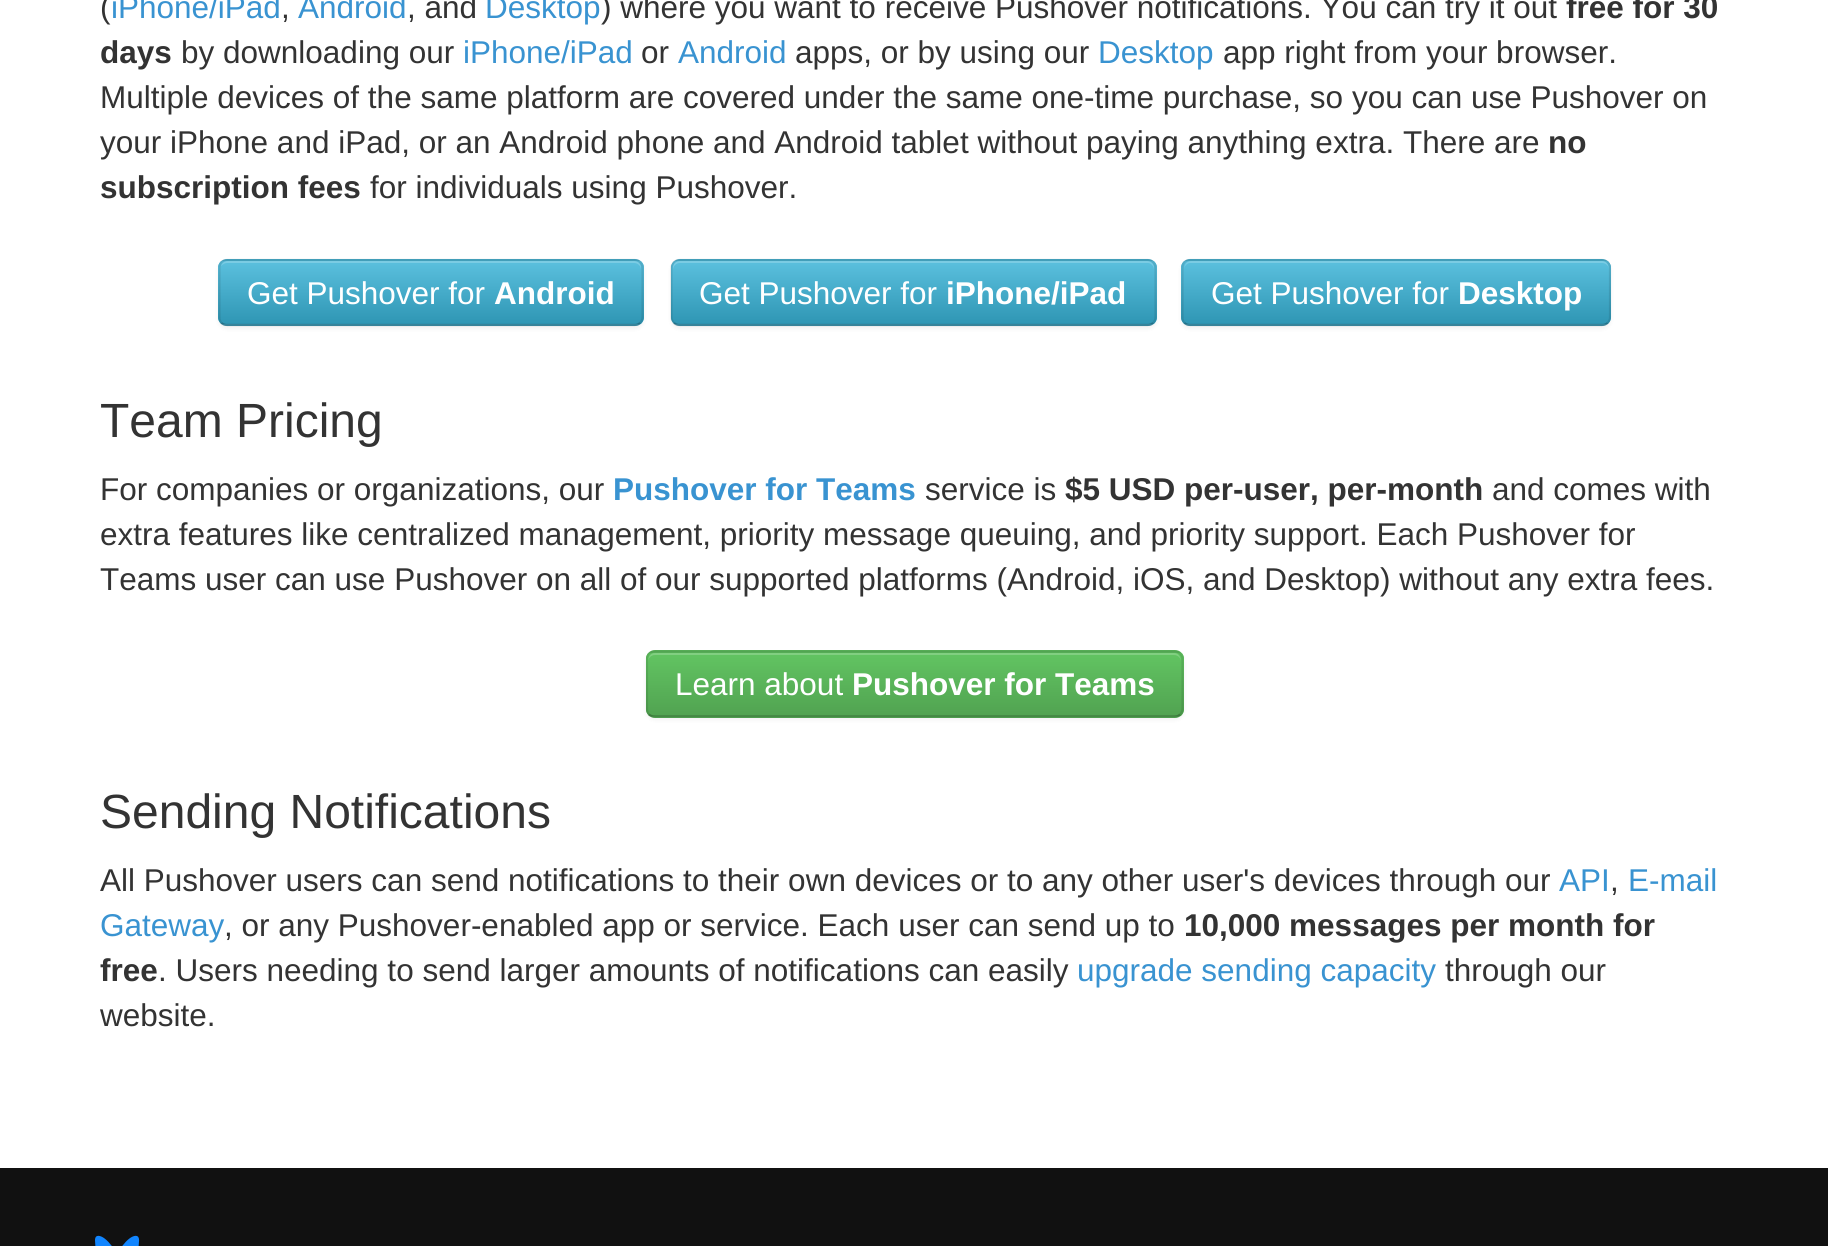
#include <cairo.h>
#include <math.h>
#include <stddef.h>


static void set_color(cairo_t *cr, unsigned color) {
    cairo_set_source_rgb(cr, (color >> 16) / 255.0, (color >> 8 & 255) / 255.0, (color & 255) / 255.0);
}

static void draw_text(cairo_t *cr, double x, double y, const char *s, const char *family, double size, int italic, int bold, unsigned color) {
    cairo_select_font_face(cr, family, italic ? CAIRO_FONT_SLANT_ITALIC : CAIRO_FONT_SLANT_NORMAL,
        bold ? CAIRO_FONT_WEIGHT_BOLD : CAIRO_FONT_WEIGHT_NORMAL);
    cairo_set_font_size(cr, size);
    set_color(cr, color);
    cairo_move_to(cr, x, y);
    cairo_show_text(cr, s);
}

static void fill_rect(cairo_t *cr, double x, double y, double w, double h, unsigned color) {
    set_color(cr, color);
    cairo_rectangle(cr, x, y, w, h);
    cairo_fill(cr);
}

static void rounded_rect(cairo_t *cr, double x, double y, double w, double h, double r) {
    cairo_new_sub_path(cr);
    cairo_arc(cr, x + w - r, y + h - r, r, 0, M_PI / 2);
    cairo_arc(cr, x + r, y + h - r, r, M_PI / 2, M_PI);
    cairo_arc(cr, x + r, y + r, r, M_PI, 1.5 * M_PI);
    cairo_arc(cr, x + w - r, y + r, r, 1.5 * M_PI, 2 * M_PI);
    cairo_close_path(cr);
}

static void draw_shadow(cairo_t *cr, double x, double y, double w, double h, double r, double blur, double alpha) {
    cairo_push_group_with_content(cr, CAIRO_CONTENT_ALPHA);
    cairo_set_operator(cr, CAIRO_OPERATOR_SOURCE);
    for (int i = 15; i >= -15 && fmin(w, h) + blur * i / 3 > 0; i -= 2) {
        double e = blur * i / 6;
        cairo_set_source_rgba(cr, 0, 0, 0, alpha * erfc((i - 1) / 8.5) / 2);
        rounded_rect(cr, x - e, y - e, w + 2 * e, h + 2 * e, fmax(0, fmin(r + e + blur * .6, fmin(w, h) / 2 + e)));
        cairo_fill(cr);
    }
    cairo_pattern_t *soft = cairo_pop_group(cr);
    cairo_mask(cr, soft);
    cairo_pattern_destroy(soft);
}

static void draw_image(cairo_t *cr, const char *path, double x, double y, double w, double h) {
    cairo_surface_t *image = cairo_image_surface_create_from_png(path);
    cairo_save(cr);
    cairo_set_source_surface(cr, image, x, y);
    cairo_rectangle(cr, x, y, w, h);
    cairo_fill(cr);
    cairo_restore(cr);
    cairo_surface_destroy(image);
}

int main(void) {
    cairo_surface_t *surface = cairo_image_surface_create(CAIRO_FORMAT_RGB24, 1828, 1246);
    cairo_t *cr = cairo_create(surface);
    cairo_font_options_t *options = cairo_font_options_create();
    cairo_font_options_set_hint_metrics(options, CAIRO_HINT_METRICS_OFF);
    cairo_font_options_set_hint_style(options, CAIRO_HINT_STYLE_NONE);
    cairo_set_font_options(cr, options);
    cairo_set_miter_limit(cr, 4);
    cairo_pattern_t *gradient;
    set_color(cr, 0xFFFFFF);
    cairo_paint(cr);
    draw_text(cr, 100, 18, "(", "Liberation Sans", 31.5, 0, 0, 0x333333);
    draw_text(cr, 111, 18, "iPhone/iPad", "Liberation Sans", 31.5, 0, 0, 0x3993D1);
    draw_text(cr, 281, 18, ",", "Liberation Sans", 31.5, 0, 0, 0x333333);
    draw_text(cr, 298, 18, "Android", "Liberation Sans", 31.5, 0, 0, 0x3993D1);
    draw_text(cr, 407, 18, ", and", "Liberation Sans", 31.5, 0, 0, 0x333333);
    draw_text(cr, 485, 18, "Desktop", "Liberation Sans", 31.5, 0, 0, 0x3993D1);
    draw_text(cr, 601, 18, ") where you want to receive Pushover notifications. You can try it out", "Liberation Sans", 31.5, 0, 0, 0x333333);
    draw_text(cr, 1566, 18, "free for 30", "Liberation Sans", 31.5, 0, 1, 0x333333);
    draw_text(cr, 100, 63, "days", "Liberation Sans", 31.5, 0, 1, 0x333333);
    draw_text(cr, 181, 63, "by downloading our", "Liberation Sans", 31.5, 0, 0, 0x333333);
    draw_text(cr, 463, 63, "iPhone/iPad", "Liberation Sans", 31.5, 0, 0, 0x3993D1);
    draw_text(cr, 641, 63, "or", "Liberation Sans", 31.5, 0, 0, 0x333333);
    draw_text(cr, 678, 63, "Android", "Liberation Sans", 31.5, 0, 0, 0x3993D1);
    draw_text(cr, 795, 63, "apps, or by using our", "Liberation Sans", 31.5, 0, 0, 0x333333);
    draw_text(cr, 1098, 63, "Desktop", "Liberation Sans", 31.5, 0, 0, 0x3993D1);
    draw_text(cr, 1223, 63, "app right from your browser.", "Liberation Sans", 31.5, 0, 0, 0x333333);
    draw_text(cr, 100, 108, "Multiple devices of the same platform are covered under the same one-time purchase, so you can use Pushover on", "Liberation Sans", 31.5, 0, 0, 0x333333);
    draw_text(cr, 100, 153, "your iPhone and iPad, or an Android phone and Android tablet without paying anything extra. There are", "Liberation Sans", 31.5, 0, 0, 0x333333);
    draw_text(cr, 1548, 153, "no", "Liberation Sans", 31.5, 0, 1, 0x333333);
    draw_text(cr, 100, 198, "subscription fees", "Liberation Sans", 31.5, 0, 1, 0x333333);
    draw_text(cr, 370, 198, "for individuals using Pushover.", "Liberation Sans", 31.5, 0, 0, 0x333333);
    set_color(cr, 0x000000);
    draw_shadow(cr, 218, 261, 426, 68, 9, 2, 0.05);
    set_color(cr, 0x49AFCD);
    rounded_rect(cr, 218, 259, 426, 67, 9);
    cairo_fill(cr);
    cairo_save(cr);
    rounded_rect(cr, 218, 259, 426, 67, 9);
    cairo_clip(cr);
    gradient = cairo_pattern_create_linear(431, 261, 431, 324);
    cairo_pattern_add_color_stop_rgba(gradient, 0, 0.357, 0.753, 0.871, 1);
    cairo_pattern_add_color_stop_rgba(gradient, 1, 0.184, 0.588, 0.706, 1);
    cairo_set_source(cr, gradient);
    cairo_pattern_destroy(gradient);
    cairo_rectangle(cr, 218, 261, 426, 63);
    cairo_fill(cr);
    cairo_restore(cr);
    cairo_set_source_rgba(cr, 1, 1, 1, 0.2);
    cairo_new_path(cr);
    cairo_move_to(cr, 227, 263);
    cairo_line_to(cr, 634, 263);
    cairo_curve_to(cr, 638, 263, 641, 266, 641, 270);
    cairo_line_to(cr, 641, 268);
    cairo_curve_to(cr, 641, 264, 638, 261, 634, 261);
    cairo_line_to(cr, 228, 261);
    cairo_curve_to(cr, 225, 261, 222, 263, 221, 266);
    cairo_curve_to(cr, 223, 264, 225, 263, 227, 263);
    cairo_close_path(cr);
    cairo_fill(cr);
    cairo_new_path(cr);
    cairo_move_to(cr, 640, 323);
    cairo_curve_to(cr, 638.5, 324.5, 636.5, 325, 634.5, 325);
    cairo_line_to(cr, 227, 325);
    cairo_curve_to(cr, 225, 325, 223, 324.5, 221.5, 323);
    cairo_set_source_rgba(cr, 0, 0, 0, 0.25);
    cairo_set_line_width(cr, 2.2);
    cairo_stroke(cr);
    cairo_new_path(cr);
    cairo_move_to(cr, 221.5, 323);
    cairo_curve_to(cr, 220, 321.5, 219.5, 319.5, 219.5, 317);
    cairo_line_to(cr, 219.5, 268);
    cairo_curve_to(cr, 219.5, 265.5, 220, 263.5, 221.5, 262);
    cairo_curve_to(cr, 223, 260.5, 225, 260, 227, 260);
    cairo_line_to(cr, 634.5, 260);
    cairo_curve_to(cr, 636.5, 260, 638.5, 260.5, 640, 262);
    cairo_curve_to(cr, 641.5, 263.5, 642.5, 265.5, 642.5, 268);
    cairo_line_to(cr, 642.5, 317);
    cairo_curve_to(cr, 642.5, 319.5, 641.5, 321.5, 640, 323);
    cairo_set_source_rgba(cr, 0, 0, 0, 0.1);
    cairo_stroke(cr);
    draw_text(cr, 247, 304, "Get Pushover for", "Liberation Sans", 31.5, 0, 0, 0xFFFFFF);
    draw_text(cr, 494, 304, "Android", "Liberation Sans", 31.5, 0, 1, 0xFFFFFF);
    set_color(cr, 0x000000);
    draw_shadow(cr, 671, 261, 486, 68, 9, 2, 0.05);
    set_color(cr, 0x49AFCD);
    rounded_rect(cr, 671, 259, 486, 67, 9);
    cairo_fill(cr);
    cairo_save(cr);
    rounded_rect(cr, 671, 259, 486, 67, 9);
    cairo_clip(cr);
    gradient = cairo_pattern_create_linear(914, 261, 914, 324);
    cairo_pattern_add_color_stop_rgba(gradient, 0, 0.357, 0.753, 0.871, 1);
    cairo_pattern_add_color_stop_rgba(gradient, 1, 0.184, 0.588, 0.706, 1);
    cairo_set_source(cr, gradient);
    cairo_pattern_destroy(gradient);
    cairo_rectangle(cr, 671, 261, 486, 63);
    cairo_fill(cr);
    cairo_restore(cr);
    cairo_set_source_rgba(cr, 1, 1, 1, 0.2);
    cairo_new_path(cr);
    cairo_move_to(cr, 680, 263);
    cairo_line_to(cr, 1148, 263);
    cairo_curve_to(cr, 1151, 263, 1154, 266, 1154, 270);
    cairo_line_to(cr, 1154, 268);
    cairo_curve_to(cr, 1154, 264, 1151, 261, 1147, 261);
    cairo_line_to(cr, 680, 261);
    cairo_curve_to(cr, 676, 261, 673, 264, 673, 268);
    cairo_line_to(cr, 673, 270);
    cairo_curve_to(cr, 673, 266, 676, 263, 680, 263);
    cairo_close_path(cr);
    cairo_fill(cr);
    cairo_new_path(cr);
    cairo_move_to(cr, 1153, 323);
    cairo_curve_to(cr, 1151.5, 324.5, 1149.5, 325, 1147.5, 325);
    cairo_line_to(cr, 679.5, 325);
    cairo_curve_to(cr, 677.5, 325, 675.5, 324.5, 674, 323);
    cairo_set_source_rgba(cr, 0, 0, 0, 0.25);
    cairo_stroke(cr);
    cairo_new_path(cr);
    cairo_move_to(cr, 674, 323);
    cairo_curve_to(cr, 672.5, 321.5, 671.5, 319.5, 671.5, 317);
    cairo_line_to(cr, 671.5, 268);
    cairo_curve_to(cr, 671.5, 265.5, 672.5, 263.5, 674, 262);
    cairo_curve_to(cr, 675.5, 260.5, 677.5, 260, 679.5, 260);
    cairo_line_to(cr, 1147.5, 260);
    cairo_curve_to(cr, 1149.5, 260, 1151.5, 260.5, 1153, 262);
    cairo_curve_to(cr, 1154.5, 263.5, 1155.5, 265.5, 1155.5, 268);
    cairo_line_to(cr, 1155.5, 317);
    cairo_curve_to(cr, 1155.5, 319.5, 1154.5, 321.5, 1153, 323);
    cairo_set_source_rgba(cr, 0, 0, 0, 0.1);
    cairo_stroke(cr);
    draw_text(cr, 699, 304, "Get Pushover for", "Liberation Sans", 31.5, 0, 0, 0xFFFFFF);
    draw_text(cr, 946, 304, "iPhone/iPad", "Liberation Sans", 31.5, 0, 1, 0xFFFFFF);
    set_color(cr, 0x000000);
    draw_shadow(cr, 1181, 261, 430, 68, 9, 2, 0.05);
    set_color(cr, 0x49AFCD);
    rounded_rect(cr, 1181, 259, 430, 67, 9);
    cairo_fill(cr);
    cairo_save(cr);
    rounded_rect(cr, 1181, 259, 430, 67, 9);
    cairo_clip(cr);
    gradient = cairo_pattern_create_linear(1396, 261, 1396, 324);
    cairo_pattern_add_color_stop_rgba(gradient, 0, 0.357, 0.753, 0.871, 1);
    cairo_pattern_add_color_stop_rgba(gradient, 1, 0.184, 0.588, 0.706, 1);
    cairo_set_source(cr, gradient);
    cairo_pattern_destroy(gradient);
    cairo_rectangle(cr, 1181, 261, 430, 63);
    cairo_fill(cr);
    cairo_restore(cr);
    cairo_set_source_rgba(cr, 1, 1, 1, 0.2);
    cairo_new_path(cr);
    cairo_move_to(cr, 1190, 263);
    cairo_line_to(cr, 1602, 263);
    cairo_curve_to(cr, 1606, 263, 1609, 266, 1609, 270);
    cairo_curve_to(cr, 1609, 266, 1607, 261, 1602, 261);
    cairo_line_to(cr, 1191, 261);
    cairo_curve_to(cr, 1186, 261, 1184, 266, 1184, 270);
    cairo_curve_to(cr, 1184, 266, 1187, 263, 1190, 263);
    cairo_close_path(cr);
    cairo_fill(cr);
    cairo_new_path(cr);
    cairo_move_to(cr, 1607.5, 323);
    cairo_curve_to(cr, 1606, 324.5, 1604, 325, 1602, 325);
    cairo_line_to(cr, 1190, 325);
    cairo_curve_to(cr, 1188, 325, 1186, 324.5, 1184.5, 323);
    cairo_set_source_rgba(cr, 0, 0, 0, 0.25);
    cairo_stroke(cr);
    cairo_new_path(cr);
    cairo_move_to(cr, 1184.5, 323);
    cairo_curve_to(cr, 1183, 321.5, 1182.5, 319.5, 1182.5, 317);
    cairo_line_to(cr, 1182.5, 268);
    cairo_curve_to(cr, 1182.5, 265.5, 1183, 263.5, 1184.5, 262);
    cairo_curve_to(cr, 1186, 260.5, 1188, 260, 1190, 260);
    cairo_line_to(cr, 1602, 260);
    cairo_curve_to(cr, 1604, 260, 1606, 260.5, 1607.5, 262);
    cairo_curve_to(cr, 1609, 263.5, 1610, 265.5, 1610, 268);
    cairo_line_to(cr, 1610, 317);
    cairo_curve_to(cr, 1610, 319.5, 1609, 321.5, 1607.5, 323);
    cairo_set_source_rgba(cr, 0, 0, 0, 0.1);
    cairo_stroke(cr);
    draw_text(cr, 1211, 304, "Get Pushover for", "Liberation Sans", 31.5, 0, 0, 0xFFFFFF);
    draw_text(cr, 1458, 304, "Desktop", "Liberation Sans", 31.5, 0, 1, 0xFFFFFF);
    draw_text(cr, 100, 437, "Team Pricing", "Liberation Sans", 48, 0, 0, 0x333333);
    draw_text(cr, 100, 500, "For companies or organizations, our", "Liberation Sans", 31.5, 0, 0, 0x333333);
    draw_text(cr, 613, 500, "Pushover for Teams", "Liberation Sans", 31.5, 0, 1, 0x3993D1);
    draw_text(cr, 925, 500, "service is", "Liberation Sans", 31.5, 0, 0, 0x333333);
    draw_text(cr, 1065, 500, "$5 USD per-user, per-month", "Liberation Sans", 31.5, 0, 1, 0x333333);
    draw_text(cr, 1492, 500, "and comes with", "Liberation Sans", 31.5, 0, 0, 0x333333);
    draw_text(cr, 100, 545, "extra features like centralized management, priority message queuing, and priority support. Each Pushover for", "Liberation Sans", 31.5, 0, 0, 0x333333);
    draw_text(cr, 100, 590, "Teams user can use Pushover on all of our supported platforms (Android, iOS, and Desktop) without any extra fees.", "Liberation Sans", 31.5, 0, 0, 0x333333);
    set_color(cr, 0x000000);
    draw_shadow(cr, 646, 653, 538, 67, 9, 2, 0.05);
    set_color(cr, 0x5BB75B);
    rounded_rect(cr, 646, 650, 538, 68, 9);
    cairo_fill(cr);
    cairo_save(cr);
    rounded_rect(cr, 646, 650, 538, 68, 9);
    cairo_clip(cr);
    gradient = cairo_pattern_create_linear(915, 653, 915, 716);
    cairo_pattern_add_color_stop_rgba(gradient, 0, 0.384, 0.769, 0.384, 1);
    cairo_pattern_add_color_stop_rgba(gradient, 1, 0.318, 0.639, 0.318, 1);
    cairo_set_source(cr, gradient);
    cairo_pattern_destroy(gradient);
    cairo_rectangle(cr, 646, 653, 538, 63);
    cairo_fill(cr);
    cairo_restore(cr);
    set_color(cr, 0x81CF81);
    cairo_new_path(cr);
    cairo_move_to(cr, 655, 655);
    cairo_line_to(cr, 1174, 655);
    cairo_curve_to(cr, 1178, 655, 1181, 658, 1181, 662);
    cairo_curve_to(cr, 1181, 658, 1179, 653, 1174, 653);
    cairo_line_to(cr, 655, 653);
    cairo_curve_to(cr, 650, 653, 648, 658, 648, 662);
    cairo_curve_to(cr, 648, 658, 651, 655, 655, 655);
    cairo_close_path(cr);
    cairo_fill(cr);
    cairo_new_path(cr);
    cairo_move_to(cr, 1180, 714.5);
    cairo_curve_to(cr, 1178.5, 716, 1176.5, 716.5, 1174.5, 716.5);
    cairo_line_to(cr, 655, 716.5);
    cairo_curve_to(cr, 652.5, 716.5, 650.5, 716, 649, 714.5);
    cairo_set_source_rgba(cr, 0, 0, 0, 0.25);
    cairo_stroke(cr);
    cairo_new_path(cr);
    cairo_move_to(cr, 649, 714.5);
    cairo_curve_to(cr, 647.5, 713, 647, 711, 647, 709);
    cairo_line_to(cr, 647, 659);
    cairo_curve_to(cr, 647, 657, 647.5, 655, 649, 653.5);
    cairo_curve_to(cr, 650.5, 652, 652.5, 651.5, 655, 651.5);
    cairo_line_to(cr, 1174.5, 651.5);
    cairo_curve_to(cr, 1176.5, 651.5, 1178.5, 652, 1180, 653.5);
    cairo_curve_to(cr, 1181.5, 655, 1182.5, 657, 1182.5, 659);
    cairo_line_to(cr, 1182.5, 709);
    cairo_curve_to(cr, 1182.5, 711, 1181.5, 713, 1180, 714.5);
    cairo_set_source_rgba(cr, 0, 0, 0, 0.1);
    cairo_stroke(cr);
    draw_text(cr, 675, 695, "Learn about", "Liberation Sans", 31.5, 0, 0, 0xFFFFFF);
    draw_text(cr, 852, 695, "Pushover for Teams", "Liberation Sans", 31.5, 0, 1, 0xFFFFFF);
    draw_text(cr, 100, 828, "Sending Notifications", "Liberation Sans", 48, 0, 0, 0x333333);
    draw_text(cr, 100, 891, "All Pushover users can send notifications to their own devices or to any other user's devices through our", "Liberation Sans", 31.5, 0, 0, 0x333333);
    draw_text(cr, 1559, 891, "API", "Liberation Sans", 31.5, 0, 0, 0x3993D1);
    draw_text(cr, 1610, 891, ",", "Liberation Sans", 31.5, 0, 0, 0x333333);
    draw_text(cr, 1628, 891, "E-mail", "Liberation Sans", 31.5, 0, 0, 0x3993D1);
    draw_text(cr, 100, 936, "Gateway", "Liberation Sans", 31.5, 0, 0, 0x3993D1);
    draw_text(cr, 224, 936, ", or any Pushover-enabled app or service. Each user can send up to", "Liberation Sans", 31.5, 0, 0, 0x333333);
    draw_text(cr, 1184, 936, "10,000 messages per month for", "Liberation Sans", 31.5, 0, 1, 0x333333);
    draw_text(cr, 100, 981, "free", "Liberation Sans", 31.5, 0, 1, 0x333333);
    draw_text(cr, 158, 981, ". Users needing to send larger amounts of notifications can easily", "Liberation Sans", 31.5, 0, 0, 0x333333);
    draw_text(cr, 1077, 981, "upgrade sending capacity", "Liberation Sans", 31.5, 0, 0, 0x3993D1);
    draw_text(cr, 1445, 981, "through our", "Liberation Sans", 31.5, 0, 0, 0x333333);
    draw_text(cr, 100, 1026, "website.", "Liberation Sans", 31.5, 0, 0, 0x333333);
    fill_rect(cr, 0, 1168, 1828, 78, 0x111111);
    draw_image(cr, "assets/img1.png", 95, 1235, 45, 11);
    cairo_surface_write_to_png(surface, "output.png");
    cairo_font_options_destroy(options);
    cairo_destroy(cr);
    cairo_surface_destroy(surface);
    return 0;
}
